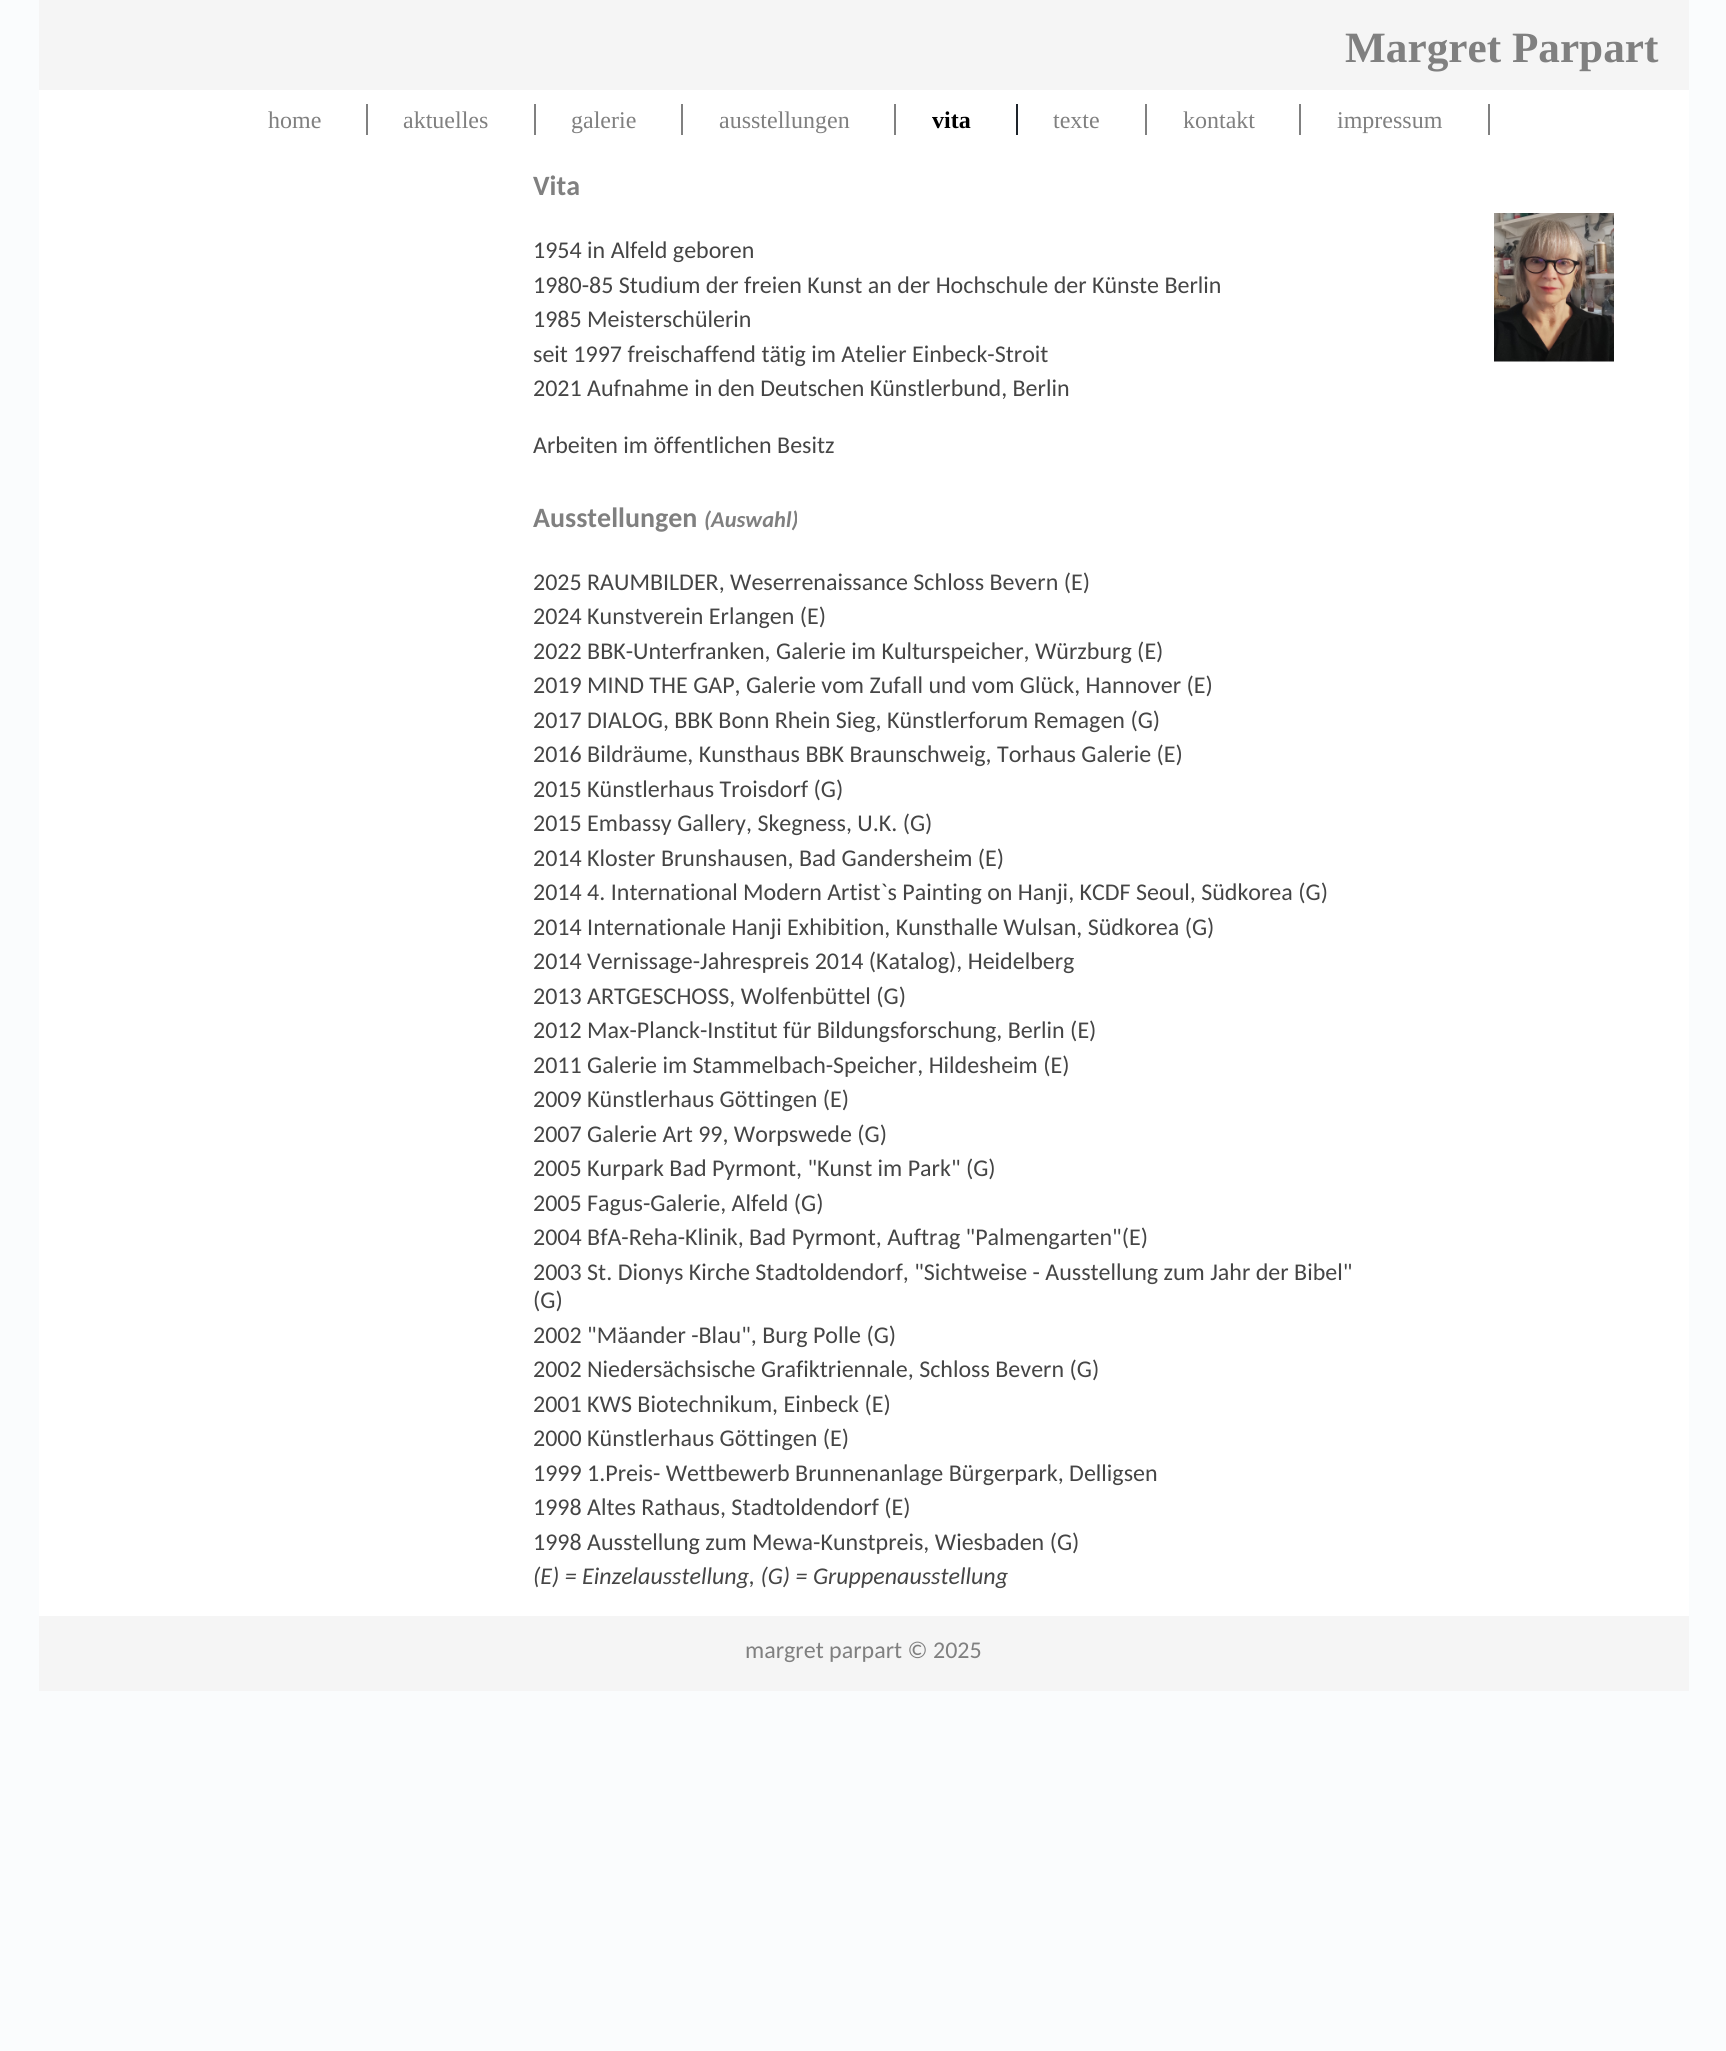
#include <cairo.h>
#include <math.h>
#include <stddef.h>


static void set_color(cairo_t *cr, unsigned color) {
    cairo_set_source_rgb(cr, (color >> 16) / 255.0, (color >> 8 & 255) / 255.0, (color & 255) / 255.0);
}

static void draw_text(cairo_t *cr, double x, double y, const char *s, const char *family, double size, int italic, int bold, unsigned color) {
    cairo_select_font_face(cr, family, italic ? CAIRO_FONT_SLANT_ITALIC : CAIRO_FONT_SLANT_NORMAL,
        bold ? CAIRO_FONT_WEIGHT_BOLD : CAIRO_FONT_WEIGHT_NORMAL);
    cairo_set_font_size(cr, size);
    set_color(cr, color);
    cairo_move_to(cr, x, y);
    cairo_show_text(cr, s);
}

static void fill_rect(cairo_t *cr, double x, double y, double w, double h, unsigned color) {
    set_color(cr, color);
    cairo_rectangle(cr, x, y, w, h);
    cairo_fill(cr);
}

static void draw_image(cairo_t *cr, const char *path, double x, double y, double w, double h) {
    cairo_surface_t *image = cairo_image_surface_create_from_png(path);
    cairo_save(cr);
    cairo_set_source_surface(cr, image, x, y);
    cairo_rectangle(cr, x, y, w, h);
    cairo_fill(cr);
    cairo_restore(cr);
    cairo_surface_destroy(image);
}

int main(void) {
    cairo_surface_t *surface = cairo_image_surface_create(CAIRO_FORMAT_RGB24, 1726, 2051);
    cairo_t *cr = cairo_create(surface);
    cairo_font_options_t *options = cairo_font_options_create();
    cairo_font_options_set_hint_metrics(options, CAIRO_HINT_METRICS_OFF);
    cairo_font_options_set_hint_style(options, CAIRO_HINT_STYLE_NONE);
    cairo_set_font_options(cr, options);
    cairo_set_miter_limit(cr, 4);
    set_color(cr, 0xFAFCFD);
    cairo_paint(cr);
    fill_rect(cr, 39, 90, 1650, 1526, 0xFFFFFF);
    fill_rect(cr, 39, 0, 1650, 90, 0xF5F5F5);
    draw_text(cr, 1345, 62, "Margret Parpart", "Liberation Serif", 43.25, 0, 1, 0x808080);
    draw_text(cr, 268, 128, "home", "Liberation Serif", 24, 0, 0, 0x808080);
    fill_rect(cr, 366, 104, 2, 31, 0x808080);
    draw_text(cr, 403, 128, "aktuelles", "Liberation Serif", 24, 0, 0, 0x808080);
    fill_rect(cr, 534, 104, 2, 31, 0x808080);
    draw_text(cr, 571, 128, "galerie", "Liberation Serif", 24, 0, 0, 0x808080);
    fill_rect(cr, 681, 104, 2, 31, 0x808080);
    draw_text(cr, 719, 128, "ausstellungen", "Liberation Serif", 24, 0, 0, 0x808080);
    fill_rect(cr, 894, 104, 2, 31, 0x808080);
    draw_text(cr, 932, 128, "vita", "Liberation Serif", 24, 0, 1, 0x000000);
    fill_rect(cr, 1016, 104, 2, 31, 0x1E242B);
    draw_text(cr, 1053, 128, "texte", "Liberation Serif", 24, 0, 0, 0x808080);
    fill_rect(cr, 1145, 104, 2, 31, 0x808080);
    draw_text(cr, 1183, 128, "kontakt", "Liberation Serif", 24, 0, 0, 0x808080);
    fill_rect(cr, 1299, 104, 2, 31, 0x808080);
    draw_text(cr, 1337, 128, "impressum", "Liberation Serif", 24, 0, 0, 0x808080);
    fill_rect(cr, 1488, 104, 2, 31, 0x808080);
    draw_text(cr, 533, 195, "Vita", "Carlito", 28, 0, 1, 0x808080);
    draw_text(cr, 533, 258, "1954 in Alfeld geboren", "Carlito", 24, 0, 0, 0x454545);
    draw_text(cr, 533, 293, "1980-85 Studium der freien Kunst an der Hochschule der Künste Berlin", "Carlito", 24, 0, 0, 0x454545);
    draw_text(cr, 533, 327, "1985 Meisterschülerin", "Carlito", 24, 0, 0, 0x454545);
    draw_text(cr, 533, 362, "seit 1997 freischaffend tätig im Atelier Einbeck-Stroit", "Carlito", 24, 0, 0, 0x454545);
    draw_text(cr, 533, 396, "2021 Aufnahme in den Deutschen Künstlerbund, Berlin", "Carlito", 24, 0, 0, 0x454545);
    draw_text(cr, 533, 453, "Arbeiten im öffentlichen Besitz", "Carlito", 24, 0, 0, 0x454545);
    draw_text(cr, 533, 527, "Ausstellungen", "Carlito", 28, 0, 1, 0x808080);
    draw_text(cr, 704, 527, "(Auswahl)", "Carlito", 22.5, 1, 1, 0x808080);
    draw_text(cr, 533, 590, "2025 RAUMBILDER, Weserrenaissance Schloss Bevern (E)", "Carlito", 24, 0, 0, 0x454545);
    draw_text(cr, 533, 624, "2024 Kunstverein Erlangen (E)", "Carlito", 24, 0, 0, 0x454545);
    draw_text(cr, 533, 659, "2022 BBK-Unterfranken, Galerie im Kulturspeicher, Würzburg (E)", "Carlito", 24, 0, 0, 0x454545);
    draw_text(cr, 533, 693, "2019 MIND THE GAP, Galerie vom Zufall und vom Glück, Hannover (E)", "Carlito", 24, 0, 0, 0x454545);
    draw_text(cr, 533, 728, "2017 DIALOG, BBK Bonn Rhein Sieg, Künstlerforum Remagen (G)", "Carlito", 24, 0, 0, 0x454545);
    draw_text(cr, 533, 762, "2016 Bildräume, Kunsthaus BBK Braunschweig, Torhaus Galerie (E)", "Carlito", 24, 0, 0, 0x454545);
    draw_text(cr, 533, 797, "2015 Künstlerhaus Troisdorf (G)", "Carlito", 24, 0, 0, 0x454545);
    draw_text(cr, 533, 831, "2015 Embassy Gallery, Skegness, U.K. (G)", "Carlito", 24, 0, 0, 0x454545);
    draw_text(cr, 533, 866, "2014 Kloster Brunshausen, Bad Gandersheim (E)", "Carlito", 24, 0, 0, 0x454545);
    draw_text(cr, 533, 900, "2014 4. International Modern Artist`s Painting on Hanji, KCDF Seoul, Südkorea (G)", "Carlito", 24, 0, 0, 0x454545);
    draw_text(cr, 533, 935, "2014 Internationale Hanji Exhibition, Kunsthalle Wulsan, Südkorea (G)", "Carlito", 24, 0, 0, 0x454545);
    draw_text(cr, 533, 969, "2014 Vernissage-Jahrespreis 2014 (Katalog), Heidelberg", "Carlito", 24, 0, 0, 0x454545);
    draw_text(cr, 533, 1004, "2013 ARTGESCHOSS, Wolfenbüttel (G)", "Carlito", 24, 0, 0, 0x454545);
    draw_text(cr, 533, 1038, "2012 Max-Planck-Institut für Bildungsforschung, Berlin (E)", "Carlito", 24, 0, 0, 0x454545);
    draw_text(cr, 533, 1073, "2011 Galerie im Stammelbach-Speicher, Hildesheim (E)", "Carlito", 24, 0, 0, 0x454545);
    draw_text(cr, 533, 1107, "2009 Künstlerhaus Göttingen (E)", "Carlito", 24, 0, 0, 0x454545);
    draw_text(cr, 533, 1142, "2007 Galerie Art 99, Worpswede (G)", "Carlito", 24, 0, 0, 0x454545);
    draw_text(cr, 533, 1176, "2005 Kurpark Bad Pyrmont, \"Kunst im Park\" (G)", "Carlito", 24, 0, 0, 0x454545);
    draw_text(cr, 533, 1211, "2005 Fagus-Galerie, Alfeld (G)", "Carlito", 24, 0, 0, 0x454545);
    draw_text(cr, 533, 1245, "2004 BfA-Reha-Klinik, Bad Pyrmont, Auftrag \"Palmengarten\"(E)", "Carlito", 24, 0, 0, 0x454545);
    draw_text(cr, 533, 1280, "2003 St. Dionys Kirche Stadtoldendorf, \"Sichtweise - Ausstellung zum Jahr der Bibel\"", "Carlito", 24, 0, 0, 0x454545);
    draw_text(cr, 533, 1308, "(G)", "Carlito", 24, 0, 0, 0x454545);
    draw_text(cr, 533, 1343, "2002 \"Mäander -Blau\", Burg Polle (G)", "Carlito", 24, 0, 0, 0x454545);
    draw_text(cr, 533, 1377, "2002 Niedersächsische Grafiktriennale, Schloss Bevern (G)", "Carlito", 24, 0, 0, 0x454545);
    draw_text(cr, 533, 1412, "2001 KWS Biotechnikum, Einbeck (E)", "Carlito", 24, 0, 0, 0x454545);
    draw_text(cr, 533, 1446, "2000 Künstlerhaus Göttingen (E)", "Carlito", 24, 0, 0, 0x454545);
    draw_text(cr, 533, 1481, "1999 1.Preis- Wettbewerb Brunnenanlage Bürgerpark, Delligsen", "Carlito", 24, 0, 0, 0x454545);
    draw_text(cr, 533, 1515, "1998 Altes Rathaus, Stadtoldendorf (E)", "Carlito", 24, 0, 0, 0x454545);
    draw_text(cr, 533, 1550, "1998 Ausstellung zum Mewa-Kunstpreis, Wiesbaden (G)", "Carlito", 24, 0, 0, 0x454545);
    draw_text(cr, 533, 1584, "(E) = Einzelausstellung, (G) = Gruppenausstellung", "Carlito", 24, 1, 0, 0x454545);
    draw_image(cr, "assets/img1.png", 1494, 213, 120, 149);
    fill_rect(cr, 39, 1616, 1650, 75, 0xF5F5F5);
    draw_text(cr, 745, 1658, "margret parpart © 2025", "Carlito", 24, 0, 0, 0x808080);
    cairo_surface_write_to_png(surface, "output.png");
    cairo_font_options_destroy(options);
    cairo_destroy(cr);
    cairo_surface_destroy(surface);
    return 0;
}
